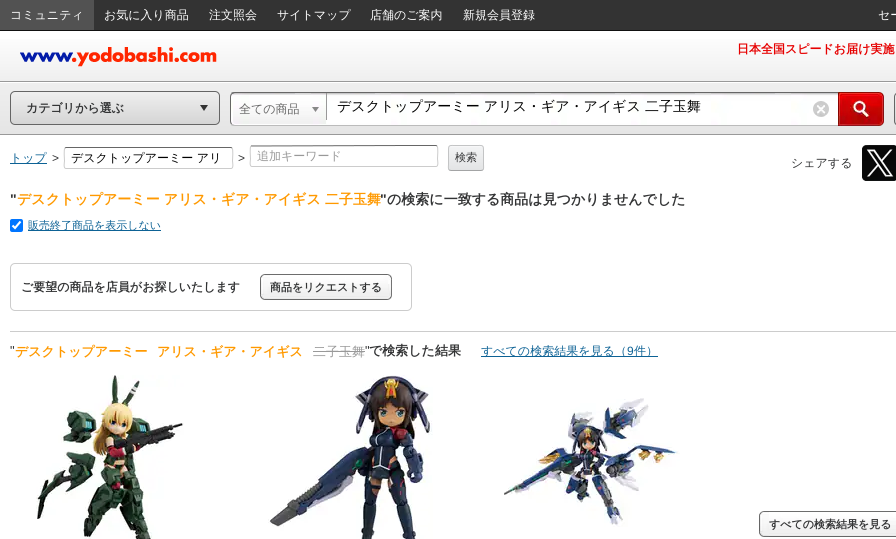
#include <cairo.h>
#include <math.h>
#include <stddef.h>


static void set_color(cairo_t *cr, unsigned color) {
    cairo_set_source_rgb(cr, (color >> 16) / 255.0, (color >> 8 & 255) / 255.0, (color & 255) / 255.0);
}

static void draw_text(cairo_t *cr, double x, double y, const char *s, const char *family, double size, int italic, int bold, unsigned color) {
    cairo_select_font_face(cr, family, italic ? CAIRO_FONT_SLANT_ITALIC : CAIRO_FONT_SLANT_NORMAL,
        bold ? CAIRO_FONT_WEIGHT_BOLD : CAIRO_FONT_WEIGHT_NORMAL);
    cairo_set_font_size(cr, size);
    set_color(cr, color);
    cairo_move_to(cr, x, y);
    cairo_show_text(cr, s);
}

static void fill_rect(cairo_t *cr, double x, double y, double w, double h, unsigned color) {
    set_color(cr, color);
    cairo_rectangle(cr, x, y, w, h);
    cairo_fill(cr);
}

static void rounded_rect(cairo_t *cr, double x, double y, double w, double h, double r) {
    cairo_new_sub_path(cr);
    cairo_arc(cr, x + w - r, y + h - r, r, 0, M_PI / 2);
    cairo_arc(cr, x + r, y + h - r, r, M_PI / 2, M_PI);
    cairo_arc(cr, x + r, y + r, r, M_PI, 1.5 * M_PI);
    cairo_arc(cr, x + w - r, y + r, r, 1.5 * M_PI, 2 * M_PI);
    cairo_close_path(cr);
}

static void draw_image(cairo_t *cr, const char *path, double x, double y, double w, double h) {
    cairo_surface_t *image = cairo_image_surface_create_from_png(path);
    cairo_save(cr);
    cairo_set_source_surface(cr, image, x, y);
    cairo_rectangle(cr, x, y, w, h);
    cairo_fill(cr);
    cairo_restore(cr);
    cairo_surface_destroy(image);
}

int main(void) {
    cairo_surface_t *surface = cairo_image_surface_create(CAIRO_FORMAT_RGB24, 896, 539);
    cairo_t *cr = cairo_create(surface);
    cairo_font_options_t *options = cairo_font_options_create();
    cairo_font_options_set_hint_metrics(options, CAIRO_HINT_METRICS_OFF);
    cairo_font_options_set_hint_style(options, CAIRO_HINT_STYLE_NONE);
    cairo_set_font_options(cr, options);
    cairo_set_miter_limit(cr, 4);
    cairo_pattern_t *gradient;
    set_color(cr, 0xFFFFFF);
    cairo_paint(cr);
    fill_rect(cr, 94, 0, 802, 30, 0x333333);
    fill_rect(cr, 0, 30, 896, 1, 0x111111);
    fill_rect(cr, 0, 0, 94, 30, 0x525252);
    draw_text(cr, 10, 19, "コミュニティ", "WenQuanYi Zen Hei Medium", 12, 0, 0, 0xFFFFFF);
    draw_text(cr, 104, 19, "お気に入り商品", "WenQuanYi Zen Hei Medium", 12, 0, 0, 0xFFFFFF);
    draw_text(cr, 209, 19, "注文照会", "WenQuanYi Zen Hei Medium", 12, 0, 0, 0xFFFFFF);
    draw_text(cr, 277, 19, "サイトマップ", "WenQuanYi Zen Hei Medium", 12, 0, 0, 0xFFFFFF);
    draw_text(cr, 370, 19, "店舗のご案内", "WenQuanYi Zen Hei Medium", 12, 0, 0, 0xFFFFFF);
    draw_text(cr, 463, 19, "新規会員登録", "WenQuanYi Zen Hei Medium", 12, 0, 0, 0xFFFFFF);
    draw_text(cr, 878, 19, "セー", "WenQuanYi Zen Hei Medium", 12, 0, 0, 0xFFFFFF);
    gradient = cairo_pattern_create_linear(500, 31, 500, 81);
    cairo_pattern_add_color_stop_rgba(gradient, 0, 1, 1, 1, 1);
    cairo_pattern_add_color_stop_rgba(gradient, 1, 0.937, 0.937, 0.937, 1);
    cairo_set_source(cr, gradient);
    cairo_pattern_destroy(gradient);
    cairo_rectangle(cr, 0, 39, 896, 42);
    cairo_fill(cr);
    fill_rect(cr, 0, 81, 896, 1, 0x999999);
    draw_image(cr, "assets/img1.png", 20, 47, 197, 20);
    draw_text(cr, 737, 53, "日本全国スピードお届け実施", "WenQuanYi Zen Hei", 12, 0, 1, 0xE60000);
    gradient = cairo_pattern_create_linear(500, 83, 500, 134);
    cairo_pattern_add_color_stop_rgba(gradient, 0, 0.937, 0.937, 0.937, 1);
    cairo_pattern_add_color_stop_rgba(gradient, 1, 0.898, 0.898, 0.898, 1);
    cairo_set_source(cr, gradient);
    cairo_pattern_destroy(gradient);
    cairo_rectangle(cr, 0, 83, 896, 51);
    cairo_fill(cr);
    fill_rect(cr, 0, 134, 896, 1, 0x999999);
    cairo_save(cr);
    rounded_rect(cr, 10, 91, 210, 34, 5);
    cairo_clip(cr);
    gradient = cairo_pattern_create_linear(115, 92, 115, 124);
    cairo_pattern_add_color_stop_rgba(gradient, 0, 0.937, 0.937, 0.937, 1);
    cairo_pattern_add_color_stop_rgba(gradient, 1, 0.835, 0.835, 0.835, 1);
    cairo_set_source(cr, gradient);
    cairo_pattern_destroy(gradient);
    cairo_rectangle(cr, 10, 92, 210, 32);
    cairo_fill(cr);
    cairo_restore(cr);
    rounded_rect(cr, 10.5, 91.5, 209, 33, 4.5);
    set_color(cr, 0x656565);
    cairo_set_line_width(cr, 1);
    cairo_stroke(cr);
    draw_text(cr, 26, 112, "カテゴリから選ぶ", "WenQuanYi Zen Hei", 12, 0, 1, 0x333435);
    set_color(cr, 0x333333);
    cairo_new_path(cr);
    cairo_move_to(cr, 200, 105);
    cairo_line_to(cr, 208, 105);
    cairo_line_to(cr, 204, 111);
    cairo_close_path(cr);
    cairo_fill(cr);
    draw_image(cr, "assets/img4.png", 230, 93, 608, 33);
    draw_image(cr, "assets/img2.png", 233, 95, 93, 29);
    draw_image(cr, "assets/img3.png", 312, 107, 7, 5);
    draw_text(cr, 239, 113, "全ての商品", "WenQuanYi Zen Hei Medium", 12, 0, 0, 0x666666);
    cairo_new_path(cr);
    cairo_move_to(cr, 235, 92);
    cairo_curve_to(cr, 234, 92, 232, 92, 231, 93);
    cairo_line_to(cr, 232, 94);
    cairo_curve_to(cr, 233, 94, 234, 93, 235, 93);
    cairo_line_to(cr, 878, 93);
    cairo_line_to(cr, 879, 92);
    cairo_close_path(cr);
    cairo_fill(cr);
    set_color(cr, 0xBBBBBB);
    cairo_new_path(cr);
    cairo_move_to(cr, 879, 126);
    cairo_line_to(cr, 878, 125);
    cairo_line_to(cr, 235, 125);
    cairo_curve_to(cr, 234, 125, 233, 124, 232, 124);
    cairo_line_to(cr, 231, 125);
    cairo_curve_to(cr, 232, 126, 234, 126, 235, 126);
    cairo_close_path(cr);
    cairo_fill(cr);
    set_color(cr, 0x666666);
    cairo_new_path(cr);
    cairo_move_to(cr, 230, 97);
    cairo_line_to(cr, 230, 121);
    cairo_curve_to(cr, 230, 122.5, 230.5, 124, 231.5, 124.5);
    cairo_line_to(cr, 232, 124);
    cairo_curve_to(cr, 231.5, 123, 231, 122, 231, 121);
    cairo_line_to(cr, 231, 97);
    cairo_curve_to(cr, 231, 96, 231.5, 95, 232, 94);
    cairo_line_to(cr, 231.5, 93.5);
    cairo_curve_to(cr, 230.5, 94, 230, 95.5, 230, 97);
    cairo_close_path(cr);
    cairo_fill(cr);
    fill_rect(cr, 326, 93, 1, 27, 0x999999);
    draw_text(cr, 337, 111, "デスクトップアーミー アリス・ギア・アイギス 二子玉舞", "WenQuanYi Zen Hei Medium", 14, 0, 0, 0x000000);
    draw_image(cr, "assets/img5.png", 813, 101, 16, 16);
    draw_image(cr, "assets/img6.png", 838, 92, 46, 34);
    cairo_save(cr);
    rounded_rect(cr, 894, 92, 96, 34, 5);
    cairo_clip(cr);
    gradient = cairo_pattern_create_linear(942, 93, 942, 125);
    cairo_pattern_add_color_stop_rgba(gradient, 0, 0.937, 0.937, 0.937, 1);
    cairo_pattern_add_color_stop_rgba(gradient, 1, 0.835, 0.835, 0.835, 1);
    cairo_set_source(cr, gradient);
    cairo_pattern_destroy(gradient);
    cairo_rectangle(cr, 894, 93, 2, 32);
    cairo_fill(cr);
    cairo_restore(cr);
    rounded_rect(cr, 894.5, 92.5, 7, 33, 4.5);
    set_color(cr, 0x656565);
    cairo_stroke(cr);
    draw_text(cr, 791, 167, "シェアする", "WenQuanYi Zen Hei Medium", 12, 0, 0, 0x333435);
    draw_image(cr, "assets/img7.png", 862, 145, 34, 36);
    fill_rect(cr, 10, 163, 37, 1, 0x0D6295);
    draw_text(cr, 10, 162, "トップ", "WenQuanYi Zen Hei Medium", 12, 0, 0, 0x0D6295);
    draw_text(cr, 52, 162, ">", "Liberation Sans", 12, 0, 0, 0x333435);
    cairo_new_path(cr);
    cairo_move_to(cr, 65, 148);
    cairo_line_to(cr, 66, 147.5);
    cairo_line_to(cr, 231, 147.5);
    cairo_line_to(cr, 232, 148);
    set_color(cr, 0x666666);
    cairo_stroke(cr);
    cairo_new_path(cr);
    cairo_move_to(cr, 232, 148);
    cairo_curve_to(cr, 233.5, 149, 232.5, 159, 232.5, 161);
    cairo_curve_to(cr, 232.5, 162, 234, 168.5, 231, 168.5);
    cairo_line_to(cr, 66, 168.5);
    cairo_curve_to(cr, 63, 168.5, 64.5, 162, 64.5, 161);
    cairo_curve_to(cr, 64.5, 159, 63.5, 149, 65, 148);
    set_color(cr, 0xCCCCCC);
    cairo_stroke(cr);
    draw_text(cr, 71, 162, "デスクトップアーミー アリ", "WenQuanYi Zen Hei Medium", 12, 0, 0, 0x000000);
    draw_text(cr, 238, 162, ">", "Liberation Sans", 12, 0, 0, 0x333435);
    cairo_new_path(cr);
    cairo_move_to(cr, 251, 146);
    cairo_line_to(cr, 405.5, 145.5);
    cairo_line_to(cr, 436, 145.5);
    cairo_line_to(cr, 437, 146);
    set_color(cr, 0x666666);
    cairo_stroke(cr);
    cairo_new_path(cr);
    cairo_move_to(cr, 437, 146);
    cairo_curve_to(cr, 438.5, 147, 437.5, 157, 437.5, 159);
    cairo_curve_to(cr, 437.5, 160, 439, 166.5, 436, 166.5);
    cairo_line_to(cr, 252, 166.5);
    cairo_curve_to(cr, 249, 166.5, 250.5, 160, 250.5, 159);
    cairo_curve_to(cr, 250.5, 157, 249.5, 147, 251, 146);
    set_color(cr, 0xCCCCCC);
    cairo_stroke(cr);
    draw_text(cr, 257, 160, "追加キーワード", "WenQuanYi Zen Hei Medium", 12, 0, 0, 0x999999);
    cairo_save(cr);
    rounded_rect(cr, 448, 145, 36, 26, 3);
    cairo_clip(cr);
    gradient = cairo_pattern_create_linear(466, 146, 466, 170);
    cairo_pattern_add_color_stop_rgba(gradient, 0, 0.953, 0.957, 0.961, 1);
    cairo_pattern_add_color_stop_rgba(gradient, 1, 0.89, 0.894, 0.898, 1);
    cairo_set_source(cr, gradient);
    cairo_pattern_destroy(gradient);
    cairo_rectangle(cr, 448, 146, 36, 24);
    cairo_fill(cr);
    cairo_restore(cr);
    cairo_new_path(cr);
    cairo_move_to(cr, 483, 170);
    cairo_curve_to(cr, 482.5, 170, 481.5, 170.5, 481, 170.5);
    cairo_line_to(cr, 451, 170.5);
    cairo_curve_to(cr, 450.5, 170.5, 449.5, 170, 449, 170);
    set_color(cr, 0xA3A4A5);
    cairo_stroke(cr);
    cairo_new_path(cr);
    cairo_move_to(cr, 449, 170);
    cairo_curve_to(cr, 448, 168.5, 448.5, 166, 448.5, 164.5);
    cairo_line_to(cr, 448.5, 151.5);
    cairo_curve_to(cr, 448.5, 144.5, 449, 145.5, 456, 145.5);
    cairo_line_to(cr, 476, 145.5);
    cairo_curve_to(cr, 483, 145.5, 483.5, 144.5, 483.5, 151.5);
    cairo_line_to(cr, 483.5, 164.5);
    cairo_curve_to(cr, 483.5, 166, 484, 168.5, 483, 170);
    set_color(cr, 0xC3C4C5);
    cairo_stroke(cr);
    cairo_set_source_rgba(cr, 1, 1, 1, 0.3);
    cairo_new_path(cr);
    cairo_move_to(cr, 452, 147);
    cairo_line_to(cr, 480, 147);
    cairo_curve_to(cr, 482, 147, 483, 148, 483, 150);
    cairo_curve_to(cr, 483, 145, 479.5, 146, 475.5, 146);
    cairo_line_to(cr, 456.5, 146);
    cairo_curve_to(cr, 452.5, 146, 449, 145, 449, 150);
    cairo_curve_to(cr, 449, 148, 450, 147, 452, 147);
    cairo_close_path(cr);
    cairo_fill(cr);
    draw_text(cr, 455, 161, "検索", "WenQuanYi Zen Hei Medium", 11, 0, 0, 0x333435);
    draw_text(cr, 10, 204, "\"", "Liberation Sans", 14, 0, 1, 0x333435);
    draw_text(cr, 17, 204, "デスクトップアーミー アリス・ギア・アイギス 二子玉舞", "WenQuanYi Zen Hei", 14, 0, 1, 0xFF9900);
    draw_text(cr, 380, 204, "\"", "Liberation Sans", 14, 0, 1, 0x333435);
    draw_text(cr, 387, 204, "の検索に一致する商品は見つかりませんでした", "WenQuanYi Zen Hei", 14, 0, 1, 0x333435);
    set_color(cr, 0x0075FF);
    rounded_rect(cr, 10, 219, 13, 13, 2);
    cairo_fill(cr);
    cairo_new_path(cr);
    cairo_move_to(cr, 12.5, 225.5);
    cairo_line_to(cr, 15, 228);
    cairo_line_to(cr, 20.5, 221.5);
    set_color(cr, 0xFFFFFF);
    cairo_set_line_width(cr, 2.1);
    cairo_stroke(cr);
    fill_rect(cr, 28, 230, 133, 1, 0x0D6295);
    draw_text(cr, 28, 229, "販売終了商品を表示しない", "WenQuanYi Zen Hei Medium", 11, 0, 0, 0x0D6295);
    rounded_rect(cr, 10.5, 263.5, 401, 47, 4.5);
    set_color(cr, 0xCCCCCC);
    cairo_set_line_width(cr, 1);
    cairo_stroke(cr);
    draw_text(cr, 21, 291, "ご要望の商品を店員がお探しいたします", "WenQuanYi Zen Hei", 12, 0, 1, 0x333435);
    draw_image(cr, "assets/img8.png", 260, 274, 10, 26);
    draw_image(cr, "assets/img9.png", 270, 274, 122, 26);
    draw_text(cr, 270, 291, "商品をリクエストする", "WenQuanYi Zen Hei", 11, 0, 1, 0x333435);
    fill_rect(cr, 10, 331, 886, 1, 0xCCCCCC);
    draw_text(cr, 10, 355, "\"", "Liberation Sans", 13, 0, 0, 0x333435);
    draw_text(cr, 15, 356, "デスクトップアーミー", "WenQuanYi Zen Hei", 13, 0, 1, 0xFF9900);
    draw_text(cr, 157, 356, "アリス・ギア・アイギス", "WenQuanYi Zen Hei", 13, 0, 1, 0xFF9900);
    draw_text(cr, 313, 356, "二子玉舞", "WenQuanYi Zen Hei Medium", 13, 0, 0, 0x999999);
    fill_rect(cr, 313, 351, 52, 1, 0x999999);
    draw_text(cr, 365, 355, "\"", "Liberation Sans", 13, 0, 0, 0x333435);
    draw_text(cr, 369, 355, "で検索した結果", "WenQuanYi Zen Hei", 13, 0, 1, 0x333435);
    fill_rect(cr, 481, 356, 177, 1, 0x0D6295);
    draw_text(cr, 481, 355, "すべての検索結果を見る（", "WenQuanYi Zen Hei Medium", 12, 0, 0, 0x0D6295);
    draw_text(cr, 627, 355, "9", "Liberation Sans", 12, 0, 0, 0x0D6295);
    draw_text(cr, 634, 355, "件）", "WenQuanYi Zen Hei Medium", 12, 0, 0, 0x0D6295);
    draw_image(cr, "assets/img10.png", 36, 375, 148, 164);
    draw_image(cr, "assets/img11.png", 268, 375, 165, 164);
    draw_image(cr, "assets/img12.png", 504, 398, 176, 129);
    draw_image(cr, "assets/img13.png", 759, 511, 10, 26);
    draw_image(cr, "assets/img14.png", 769, 511, 127, 26);
    draw_text(cr, 769, 528, "すべての検索結果を見る", "WenQuanYi Zen Hei", 11, 0, 1, 0x333435);
    cairo_surface_write_to_png(surface, "output.png");
    cairo_font_options_destroy(options);
    cairo_destroy(cr);
    cairo_surface_destroy(surface);
    return 0;
}
